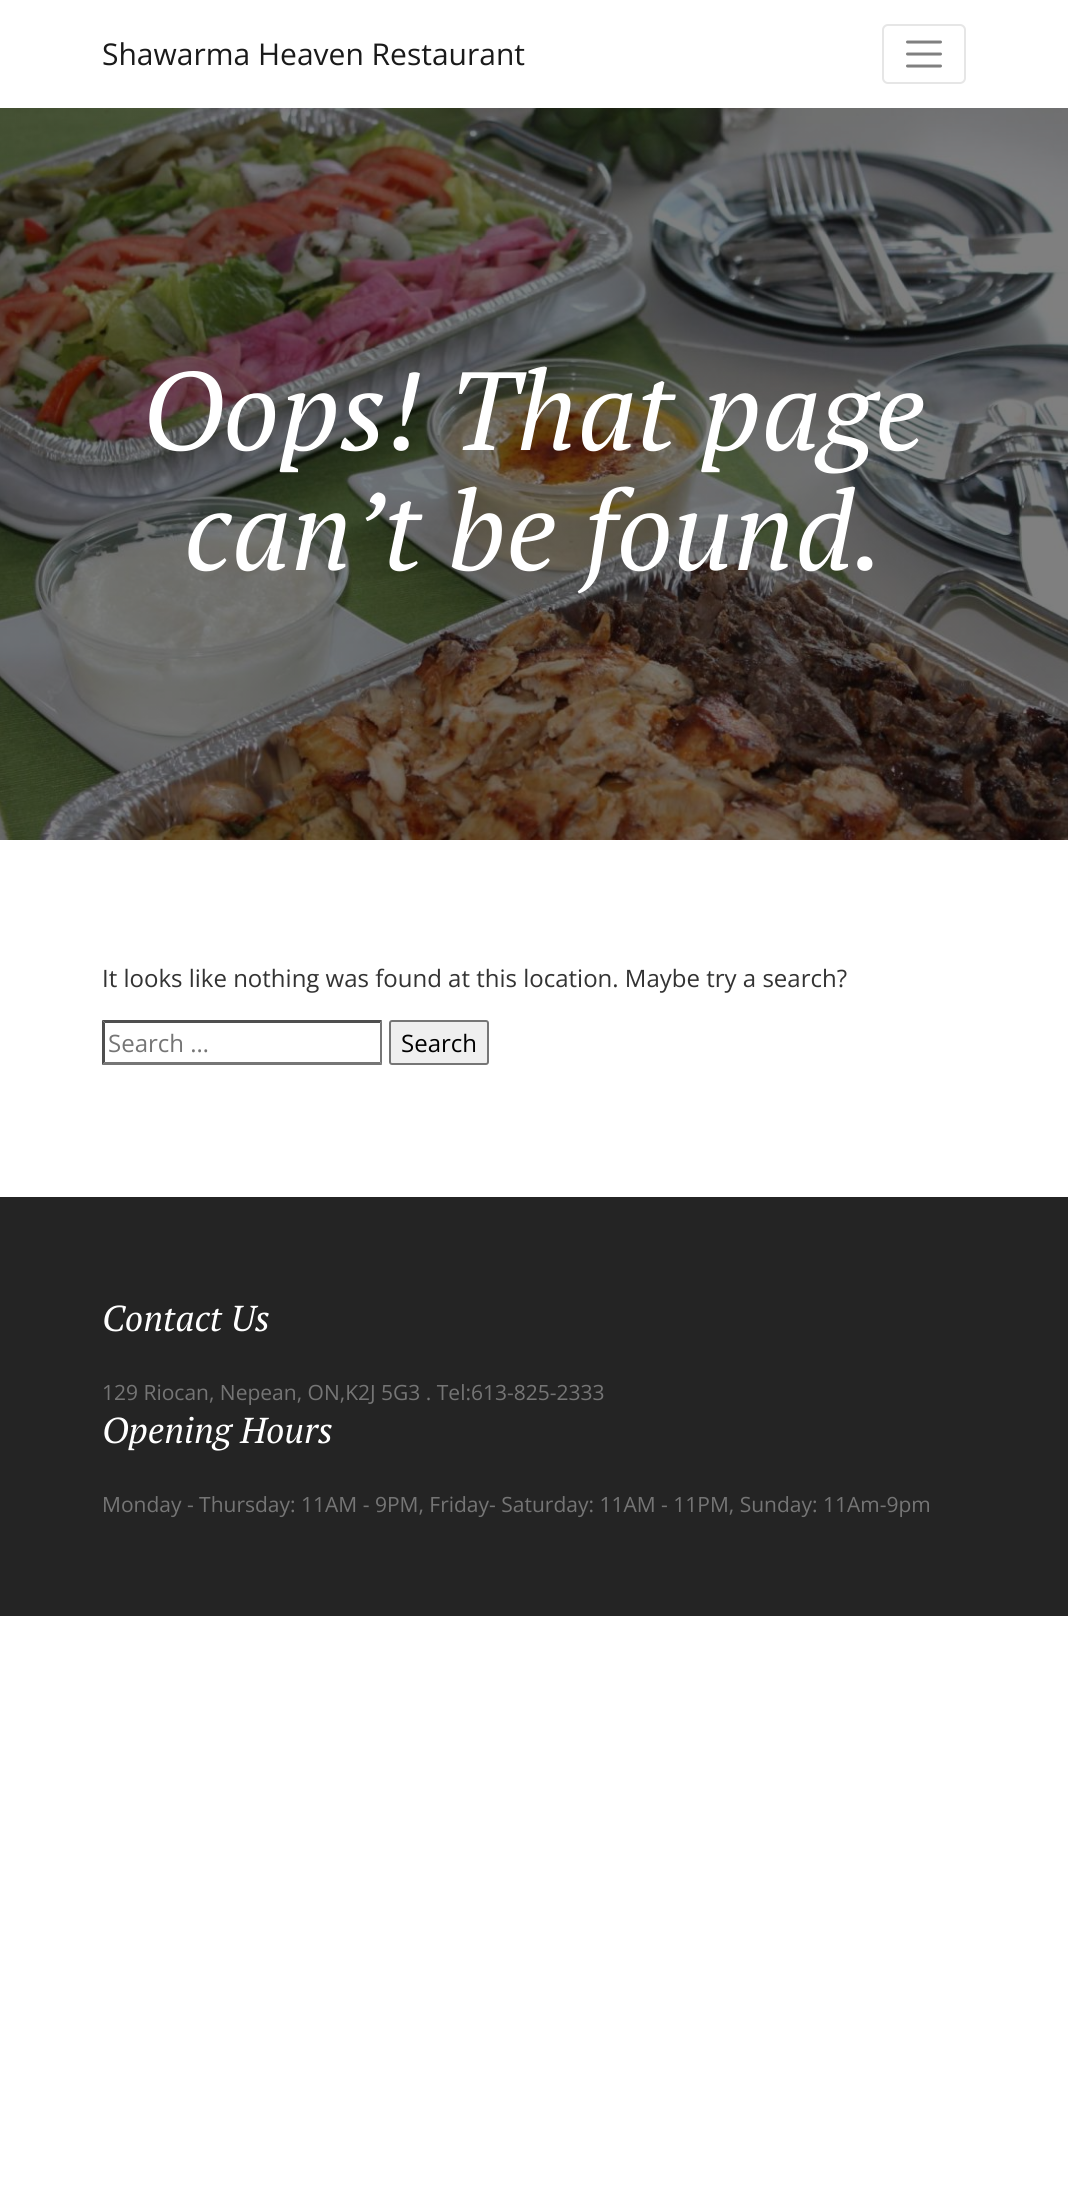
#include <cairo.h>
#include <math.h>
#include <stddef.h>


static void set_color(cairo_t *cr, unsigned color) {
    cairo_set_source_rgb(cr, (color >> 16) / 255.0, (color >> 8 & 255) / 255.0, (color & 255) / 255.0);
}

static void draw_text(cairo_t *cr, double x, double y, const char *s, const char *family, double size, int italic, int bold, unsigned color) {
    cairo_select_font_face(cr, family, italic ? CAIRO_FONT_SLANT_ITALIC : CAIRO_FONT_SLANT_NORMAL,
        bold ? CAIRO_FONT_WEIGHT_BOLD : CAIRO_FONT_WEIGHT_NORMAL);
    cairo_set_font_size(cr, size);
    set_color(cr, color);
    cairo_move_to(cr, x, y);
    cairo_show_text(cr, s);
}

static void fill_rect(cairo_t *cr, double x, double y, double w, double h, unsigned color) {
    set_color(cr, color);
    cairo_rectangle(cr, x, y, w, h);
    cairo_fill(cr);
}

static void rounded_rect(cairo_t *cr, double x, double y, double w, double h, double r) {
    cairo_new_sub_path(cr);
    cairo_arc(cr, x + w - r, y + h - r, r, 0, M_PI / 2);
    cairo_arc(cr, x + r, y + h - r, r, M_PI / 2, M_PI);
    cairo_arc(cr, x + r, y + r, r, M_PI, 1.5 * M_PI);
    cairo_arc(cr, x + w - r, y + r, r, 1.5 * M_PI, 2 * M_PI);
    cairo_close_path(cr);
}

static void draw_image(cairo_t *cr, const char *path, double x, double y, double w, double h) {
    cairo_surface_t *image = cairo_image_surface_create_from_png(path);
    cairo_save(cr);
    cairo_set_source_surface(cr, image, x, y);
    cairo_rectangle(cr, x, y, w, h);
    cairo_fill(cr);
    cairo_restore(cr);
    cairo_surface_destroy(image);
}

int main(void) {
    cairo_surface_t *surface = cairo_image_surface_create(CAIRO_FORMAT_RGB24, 1068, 2185);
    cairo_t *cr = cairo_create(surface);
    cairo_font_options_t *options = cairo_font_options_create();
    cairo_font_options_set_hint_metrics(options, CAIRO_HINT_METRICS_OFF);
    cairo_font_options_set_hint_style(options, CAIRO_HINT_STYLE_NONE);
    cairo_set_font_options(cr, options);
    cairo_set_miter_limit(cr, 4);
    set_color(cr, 0xFFFFFF);
    cairo_paint(cr);
    draw_text(cr, 102, 65, "Shawarma Heaven Restaurant", "Open Sans", 30, 0, 0, 0x1A1A1A);
    rounded_rect(cr, 883, 25, 82, 58, 5);
    set_color(cr, 0xE6E6E6);
    cairo_stroke(cr);
    cairo_new_path(cr);
    cairo_move_to(cr, 907.5, 42);
    cairo_line_to(cr, 940.5, 42);
    cairo_move_to(cr, 907.5, 54);
    cairo_line_to(cr, 940.5, 54);
    cairo_move_to(cr, 907.5, 66);
    cairo_line_to(cr, 940.5, 66);
    set_color(cr, 0x808080);
    cairo_set_line_width(cr, 3);
    cairo_set_line_cap(cr, CAIRO_LINE_CAP_ROUND);
    cairo_stroke(cr);
    draw_image(cr, "assets/img1.png", 0, 108, 1068, 732);
    draw_text(cr, 142, 450, "Oops! That page", "PT Serif", 111, 1, 0, 0xFFFFFF);
    draw_text(cr, 184, 570, "can’t be found.", "PT Serif", 111, 1, 0, 0xFFFFFF);
    draw_text(cr, 102, 987, "It looks like nothing was found at this location. Maybe try a search?", "Open Sans", 24, 0, 0, 0x333333);
    set_color(cr, 0x4F4F4F);
    cairo_new_path(cr);
    cairo_move_to(cr, 102, 1020);
    cairo_line_to(cr, 382, 1020);
    cairo_line_to(cr, 380, 1023);
    cairo_line_to(cr, 105, 1023);
    cairo_close_path(cr);
    cairo_fill(cr);
    set_color(cr, 0x767676);
    cairo_new_path(cr);
    cairo_move_to(cr, 382, 1020);
    cairo_line_to(cr, 382, 1065);
    cairo_line_to(cr, 380, 1062);
    cairo_line_to(cr, 380, 1023);
    cairo_close_path(cr);
    cairo_fill(cr);
    cairo_new_path(cr);
    cairo_move_to(cr, 382, 1065);
    cairo_line_to(cr, 102, 1065);
    cairo_line_to(cr, 105, 1062);
    cairo_line_to(cr, 380, 1062);
    cairo_close_path(cr);
    cairo_fill(cr);
    set_color(cr, 0x4F4F4F);
    cairo_new_path(cr);
    cairo_move_to(cr, 102, 1065);
    cairo_line_to(cr, 102, 1020);
    cairo_line_to(cr, 105, 1023);
    cairo_line_to(cr, 105, 1062);
    cairo_close_path(cr);
    cairo_fill(cr);
    draw_text(cr, 108, 1052, "Search …", "Open Sans", 24, 0, 0, 0x757575);
    set_color(cr, 0xEFEFEF);
    rounded_rect(cr, 390, 1021, 98, 43, 2);
    cairo_fill_preserve(cr);
    set_color(cr, 0x767676);
    cairo_set_line_width(cr, 2);
    cairo_set_line_cap(cr, CAIRO_LINE_CAP_BUTT);
    cairo_stroke(cr);
    draw_text(cr, 401, 1052, "Search", "Open Sans", 24, 0, 0, 0x000000);
    fill_rect(cr, 0, 1197, 1068, 419, 0x242424);
    draw_text(cr, 102, 1331, "Contact Us", "PT Serif", 36, 1, 0, 0xFFFFFF);
    draw_text(cr, 102, 1400, "129 Riocan, Nepean, ON,K2J 5G3 . Tel:613-825-2333", "Open Sans", 21, 0, 0, 0x757575);
    draw_text(cr, 102, 1443, "Opening Hours", "PT Serif", 36, 1, 0, 0xFFFFFF);
    draw_text(cr, 102, 1512, "Monday - Thursday: 11AM - 9PM, Friday- Saturday: 11AM - 11PM, Sunday: 11Am-9pm", "Open Sans", 21, 0, 0, 0x757575);
    cairo_surface_write_to_png(surface, "output.png");
    cairo_font_options_destroy(options);
    cairo_destroy(cr);
    cairo_surface_destroy(surface);
    return 0;
}
